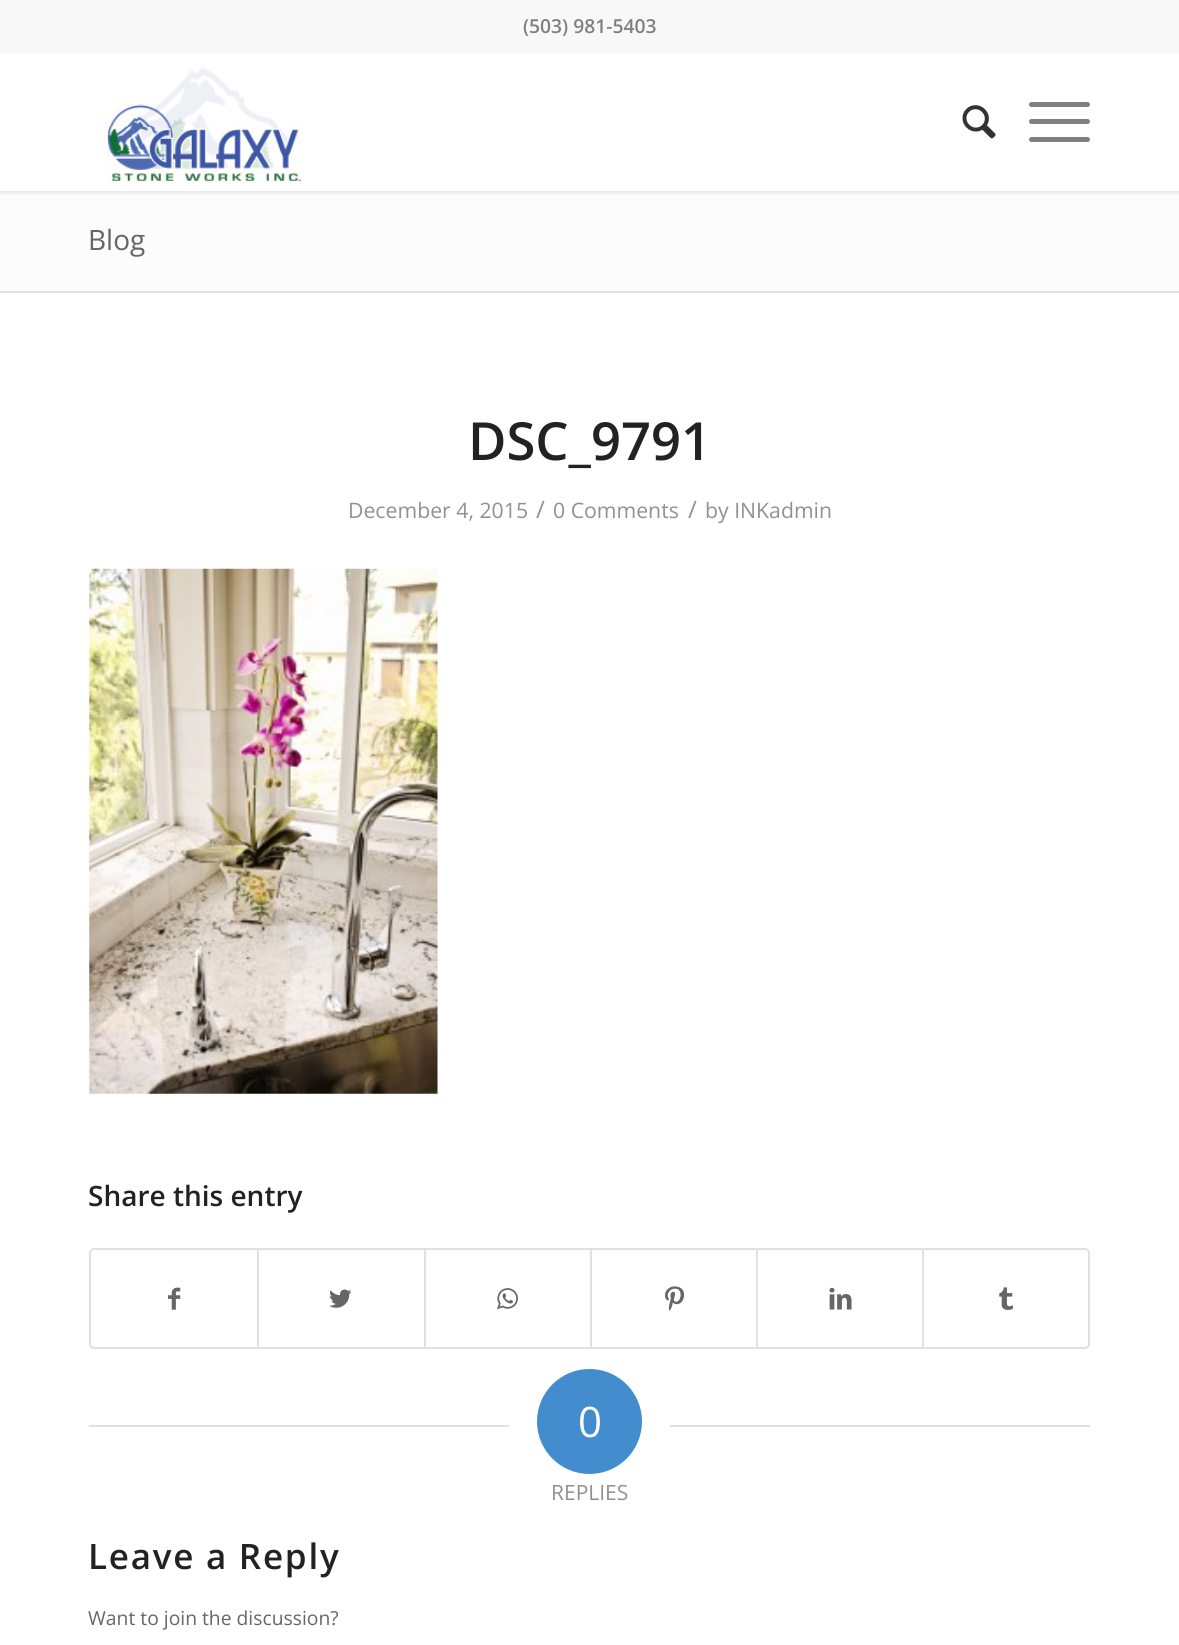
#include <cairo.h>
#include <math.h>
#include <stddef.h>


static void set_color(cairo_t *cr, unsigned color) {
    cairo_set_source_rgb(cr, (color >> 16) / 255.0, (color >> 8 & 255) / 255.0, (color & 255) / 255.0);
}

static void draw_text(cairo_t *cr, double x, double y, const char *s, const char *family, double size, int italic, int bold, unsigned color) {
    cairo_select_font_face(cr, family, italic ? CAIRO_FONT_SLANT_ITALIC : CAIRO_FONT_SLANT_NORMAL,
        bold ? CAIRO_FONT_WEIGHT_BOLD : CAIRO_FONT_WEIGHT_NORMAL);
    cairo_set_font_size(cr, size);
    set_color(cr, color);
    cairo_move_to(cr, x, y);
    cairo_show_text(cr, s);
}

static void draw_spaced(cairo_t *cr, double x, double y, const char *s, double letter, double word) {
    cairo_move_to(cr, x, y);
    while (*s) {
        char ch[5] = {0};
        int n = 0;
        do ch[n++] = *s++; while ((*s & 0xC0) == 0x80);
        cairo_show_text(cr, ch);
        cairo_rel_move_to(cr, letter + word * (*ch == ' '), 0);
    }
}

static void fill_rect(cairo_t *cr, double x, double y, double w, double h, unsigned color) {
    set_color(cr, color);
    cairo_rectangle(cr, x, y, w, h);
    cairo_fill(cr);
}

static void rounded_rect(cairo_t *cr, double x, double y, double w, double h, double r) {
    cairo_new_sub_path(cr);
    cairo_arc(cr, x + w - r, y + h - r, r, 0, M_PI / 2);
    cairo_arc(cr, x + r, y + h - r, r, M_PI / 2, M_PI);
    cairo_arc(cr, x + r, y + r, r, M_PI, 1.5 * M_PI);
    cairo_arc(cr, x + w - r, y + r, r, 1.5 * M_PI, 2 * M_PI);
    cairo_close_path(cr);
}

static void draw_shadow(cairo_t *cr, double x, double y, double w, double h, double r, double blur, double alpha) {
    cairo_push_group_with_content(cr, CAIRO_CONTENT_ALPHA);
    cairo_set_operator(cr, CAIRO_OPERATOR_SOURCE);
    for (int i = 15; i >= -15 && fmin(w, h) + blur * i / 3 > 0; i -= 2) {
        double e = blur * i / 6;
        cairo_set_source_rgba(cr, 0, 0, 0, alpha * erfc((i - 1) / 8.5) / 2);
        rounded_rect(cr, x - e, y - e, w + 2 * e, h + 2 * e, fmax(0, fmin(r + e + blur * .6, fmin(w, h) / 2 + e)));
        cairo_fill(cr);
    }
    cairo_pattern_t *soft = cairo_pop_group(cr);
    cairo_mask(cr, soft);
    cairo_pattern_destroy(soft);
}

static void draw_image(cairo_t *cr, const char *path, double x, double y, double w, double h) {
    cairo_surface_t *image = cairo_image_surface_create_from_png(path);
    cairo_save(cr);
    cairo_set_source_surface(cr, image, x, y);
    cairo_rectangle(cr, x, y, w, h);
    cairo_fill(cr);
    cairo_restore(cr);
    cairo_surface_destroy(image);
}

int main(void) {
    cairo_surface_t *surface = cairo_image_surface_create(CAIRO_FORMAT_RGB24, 1179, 1645);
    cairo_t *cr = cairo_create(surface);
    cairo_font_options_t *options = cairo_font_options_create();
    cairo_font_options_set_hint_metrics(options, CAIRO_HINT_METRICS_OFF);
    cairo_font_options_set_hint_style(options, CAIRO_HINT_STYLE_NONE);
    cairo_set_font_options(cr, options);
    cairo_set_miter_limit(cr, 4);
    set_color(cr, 0xFFFFFF);
    cairo_paint(cr);
    fill_rect(cr, 0, 191, 1179, 100, 0xFCFCFC);
    set_color(cr, 0x000000);
    draw_shadow(cr, -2, -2, 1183, 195, 0, 2, 0.1);
    fill_rect(cr, 0, 0, 1179, 53, 0xF8F8F8);
    draw_text(cr, 523, 33, "(503) 981-5403", "Open Sans SemiBold", 19.25, 0, 0, 0x808080);
    fill_rect(cr, 0, 53, 1179, 138, 0xFFFFFF);
    draw_image(cr, "assets/img1.png", 107, 67, 194, 116);
    draw_image(cr, "assets/img2.png", 962, 105, 34, 34);
    set_color(cr, 0x808080);
    rounded_rect(cr, 1029, 119, 61, 5, 2.5);
    cairo_fill(cr);
    rounded_rect(cr, 1029, 102, 61, 5, 2.5);
    cairo_fill(cr);
    rounded_rect(cr, 1029, 137, 61, 5, 2.5);
    cairo_fill(cr);
    draw_text(cr, 88, 250, "Blog", "Open Sans", 28, 0, 0, 0x666666);
    fill_rect(cr, 0, 291, 1179, 2, 0xE1E1E1);
    draw_text(cr, 468, 460, "DSC_9791", "Open Sans SemiBold", 52.5, 0, 0, 0x222222);
    draw_text(cr, 348, 518, "December 4, 2015", "Open Sans", 21.25, 0, 0, 0x919191);
    draw_text(cr, 536, 518, "/", "Open Sans", 24, 0, 0, 0x919191);
    draw_text(cr, 553, 518, "0 Comments", "Open Sans", 21.25, 0, 0, 0x919191);
    draw_text(cr, 688, 518, "/", "Open Sans", 24, 0, 0, 0x919191);
    draw_text(cr, 705, 518, "by INKadmin", "Open Sans", 21.25, 0, 0, 0x919191);
    draw_image(cr, "assets/img3.png", 89, 568, 349, 526);
    draw_text(cr, 88, 1206, "Share this entry", "Open Sans SemiBold", 28, 0, 0, 0x222222);
    rounded_rect(cr, 90, 1249, 999, 99, 4);
    set_color(cr, 0xE1E1E1);
    cairo_stroke(cr);
    draw_image(cr, "assets/img4.png", 168, 1287, 13, 23);
    fill_rect(cr, 257, 1250, 2, 98, 0xE1E1E1);
    draw_image(cr, "assets/img5.png", 329, 1289, 23, 19);
    fill_rect(cr, 424, 1250, 2, 98, 0xE1E1E1);
    draw_image(cr, "assets/img6.png", 497, 1288, 21, 22);
    fill_rect(cr, 590, 1250, 2, 98, 0xE1E1E1);
    draw_image(cr, "assets/img7.png", 665, 1286, 19, 25);
    fill_rect(cr, 756, 1250, 2, 98, 0xE1E1E1);
    draw_image(cr, "assets/img8.png", 829, 1287, 23, 23);
    fill_rect(cr, 922, 1250, 2, 98, 0xE1E1E1);
    draw_image(cr, "assets/img9.png", 999, 1287, 14, 23);
    fill_rect(cr, 89, 1425, 420, 2, 0xE1E1E1);
    set_color(cr, 0x438DCE);
    cairo_arc(cr, 589.5, 1421.5, 52.5, 0, 2 * M_PI);
    cairo_fill(cr);
    draw_text(cr, 578, 1437, "0", "Open Sans", 42, 0, 0, 0xFFFFFF);
    fill_rect(cr, 670, 1425, 420, 2, 0xE1E1E1);
    draw_text(cr, 551, 1500, "REPLIES", "Open Sans", 21, 0, 0, 0x919191);
    cairo_select_font_face(cr, "Open Sans SemiBold", CAIRO_FONT_SLANT_NORMAL, CAIRO_FONT_WEIGHT_NORMAL);
    cairo_set_font_size(cr, 35);
    set_color(cr, 0x222222);
    draw_spaced(cr, 88, 1569, "Leave a Reply", 1.75, 0);
    draw_text(cr, 88, 1625, "Want to join the discussion?", "Open Sans", 19.3, 0, 0, 0x666666);
    cairo_surface_write_to_png(surface, "output.png");
    cairo_font_options_destroy(options);
    cairo_destroy(cr);
    cairo_surface_destroy(surface);
    return 0;
}
